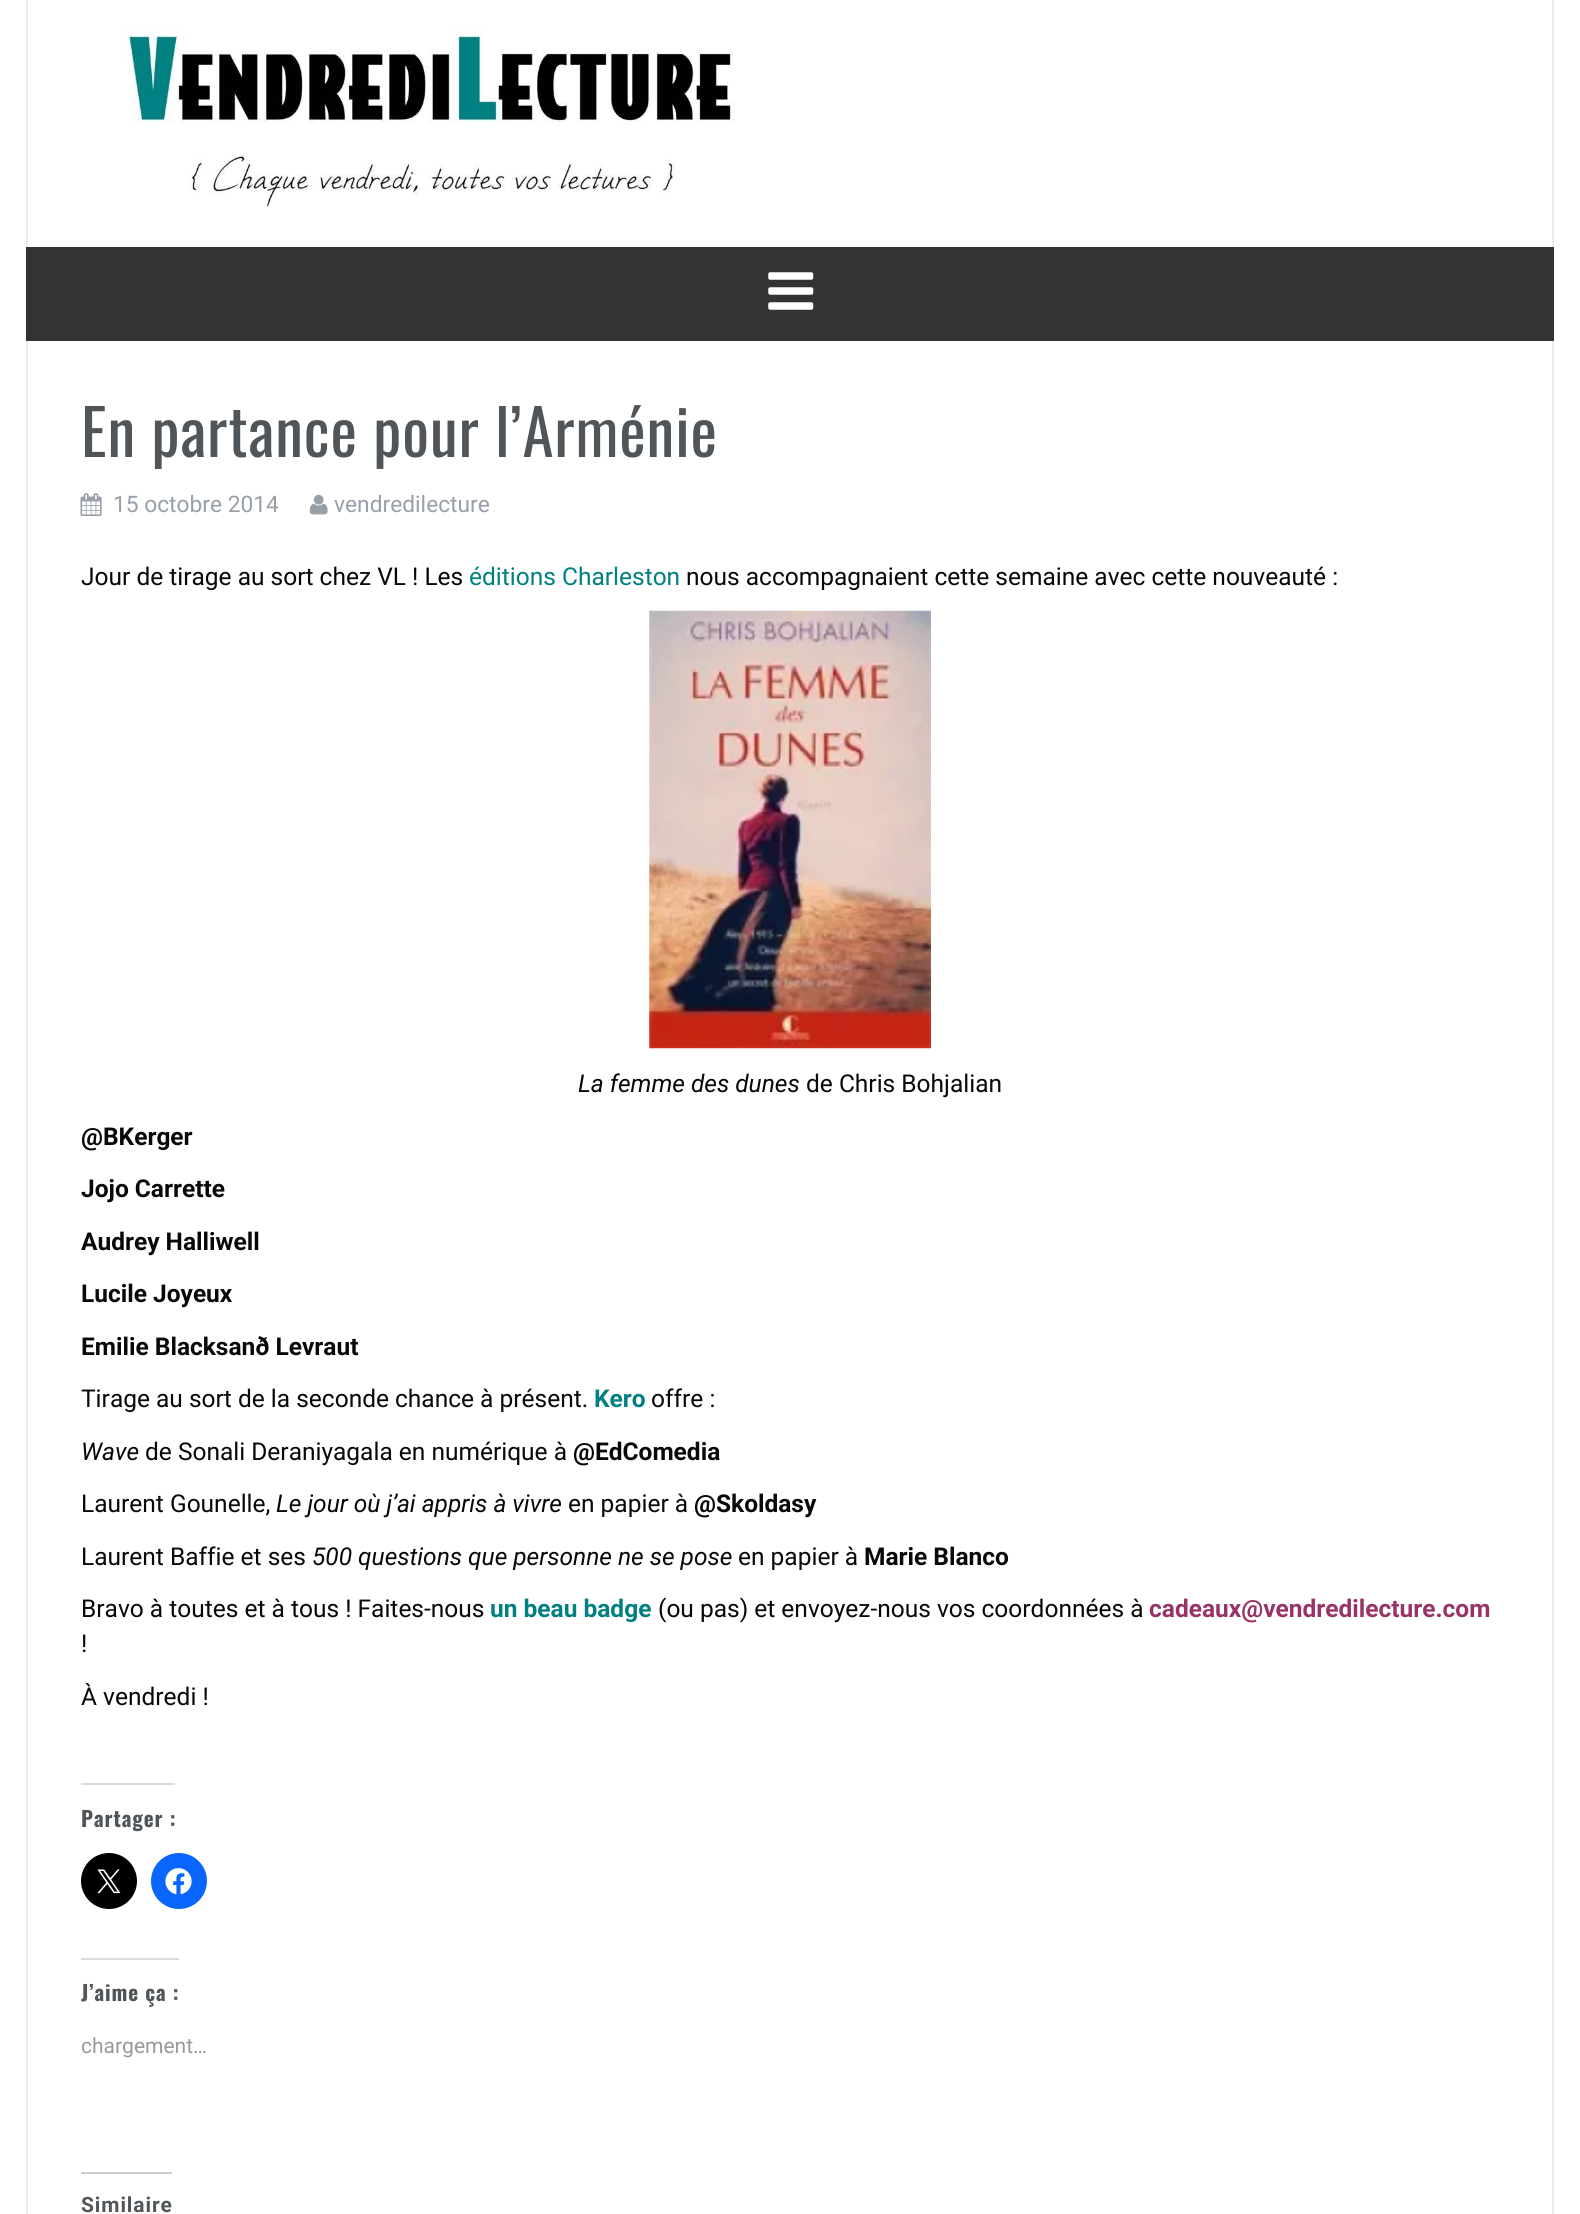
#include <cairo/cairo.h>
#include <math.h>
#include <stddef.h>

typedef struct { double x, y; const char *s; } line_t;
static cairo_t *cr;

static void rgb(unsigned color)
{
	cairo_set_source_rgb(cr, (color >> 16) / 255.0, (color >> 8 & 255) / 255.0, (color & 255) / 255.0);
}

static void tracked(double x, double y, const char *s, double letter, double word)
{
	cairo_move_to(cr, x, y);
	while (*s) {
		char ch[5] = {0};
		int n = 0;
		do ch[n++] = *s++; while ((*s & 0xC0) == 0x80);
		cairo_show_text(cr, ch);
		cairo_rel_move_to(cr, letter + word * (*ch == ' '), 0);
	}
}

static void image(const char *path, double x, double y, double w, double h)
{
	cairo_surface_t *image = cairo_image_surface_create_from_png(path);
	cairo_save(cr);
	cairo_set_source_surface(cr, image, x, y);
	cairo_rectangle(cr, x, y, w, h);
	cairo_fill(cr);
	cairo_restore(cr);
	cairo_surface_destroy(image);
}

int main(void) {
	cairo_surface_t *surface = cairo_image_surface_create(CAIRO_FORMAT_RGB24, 1580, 2214);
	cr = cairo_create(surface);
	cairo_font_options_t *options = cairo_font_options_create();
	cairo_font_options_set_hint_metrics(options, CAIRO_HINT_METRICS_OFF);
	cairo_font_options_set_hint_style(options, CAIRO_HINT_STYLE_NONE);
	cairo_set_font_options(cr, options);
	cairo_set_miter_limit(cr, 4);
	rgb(0xffffff);
	cairo_paint(cr);
	rgb(0xebebeb);
	cairo_rectangle(cr, 1552, 0, 2, 247);
	cairo_fill(cr);
	cairo_rectangle(cr, 26, 0, 2, 247);
	cairo_fill(cr);
	image("img/1.png", 122, 29, 612, 178);
	rgb(0x333333);
	cairo_rectangle(cr, 26, 247, 1528, 94);
	cairo_fill(cr);
	image("img/2.png", 768, 272, 46, 38);
	rgb(0xebebeb);
	cairo_rectangle(cr, 1552, 341, 2, 1873);
	cairo_fill(cr);
	cairo_rectangle(cr, 26, 341, 2, 1873);
	cairo_fill(cr);
	image("img/3.png", 80, 493, 22, 23);
	image("img/4.png", 309, 494, 19, 21);
	image("img/5.png", 649, 610, 282, 439);
	rgb(0xdcdcde);
	cairo_rectangle(cr, 81, 1783, 94, 2);
	cairo_fill(cr);
	rgb(0x000000);
	cairo_arc(cr, 109, 1881, 28, 0, 2 * M_PI);
	cairo_fill(cr);
	image("img/6.png", 97, 1869, 24, 25);
	rgb(0x0866ff);
	cairo_arc(cr, 179, 1881, 28, 0, 2 * M_PI);
	cairo_fill(cr);
	image("img/7.png", 165, 1868, 27, 27);
	rgb(0xdcdcde);
	cairo_rectangle(cr, 81, 1958, 98, 2);
	cairo_fill(cr);
	rgb(0xcccccc);
	cairo_rectangle(cr, 81, 2172, 91, 2);
	cairo_fill(cr);
	cairo_select_font_face(cr, "Oswald", CAIRO_FONT_SLANT_NORMAL, CAIRO_FONT_WEIGHT_NORMAL);
	cairo_set_font_size(cr, 63);
	rgb(0x505559);
	tracked(81, 457, "En partance pour l’Arménie", 0.9, 0);
	cairo_select_font_face(cr, "Roboto", CAIRO_FONT_SLANT_NORMAL, CAIRO_FONT_WEIGHT_NORMAL);
	cairo_set_font_size(cr, 22.75);
	rgb(0x989fa8);
	cairo_move_to(cr, 113, 512);
	cairo_show_text(cr, "15 octobre 2014");
	cairo_move_to(cr, 334, 512);
	cairo_show_text(cr, "vendredilecture");
	cairo_set_font_size(cr, 24.5);
	rgb(0x0a0707);
	cairo_move_to(cr, 81, 585);
	cairo_show_text(cr, "Jour de tirage au sort chez VL ! Les");
	rgb(0x008081);
	cairo_move_to(cr, 469, 585);
	cairo_show_text(cr, "éditions Charleston");
	rgb(0x0a0707);
	cairo_move_to(cr, 686, 585);
	cairo_show_text(cr, "nous accompagnaient cette semaine avec cette nouveauté :");
	cairo_select_font_face(cr, "Roboto", CAIRO_FONT_SLANT_ITALIC, CAIRO_FONT_WEIGHT_NORMAL);
	cairo_move_to(cr, 578, 1092);
	cairo_show_text(cr, "La femme des dunes");
	cairo_select_font_face(cr, "Roboto", CAIRO_FONT_SLANT_NORMAL, CAIRO_FONT_WEIGHT_NORMAL);
	cairo_move_to(cr, 806, 1092);
	cairo_show_text(cr, "de Chris Bohjalian");
	cairo_select_font_face(cr, "Roboto", CAIRO_FONT_SLANT_NORMAL, CAIRO_FONT_WEIGHT_BOLD);
	{
		static const line_t items[] = {
			{81, 1145, "@BKerger"},
			{81, 1197, "Jojo Carrette"},
			{81, 1250, "Audrey Halliwell"},
			{81, 1302, "Lucile Joyeux"},
			{81, 1355, "Emilie Blacksanð Levraut"},
		};
		for (size_t i = 0; i < sizeof items / sizeof *items; i++) {
			cairo_move_to(cr, items[i].x, items[i].y);
			cairo_show_text(cr, items[i].s);
		}
	}
	cairo_select_font_face(cr, "Roboto", CAIRO_FONT_SLANT_NORMAL, CAIRO_FONT_WEIGHT_NORMAL);
	cairo_move_to(cr, 81, 1407);
	cairo_show_text(cr, "Tirage au sort de la seconde chance à présent.");
	cairo_select_font_face(cr, "Roboto", CAIRO_FONT_SLANT_NORMAL, CAIRO_FONT_WEIGHT_BOLD);
	rgb(0x008081);
	cairo_move_to(cr, 594, 1407);
	cairo_show_text(cr, "Kero");
	cairo_select_font_face(cr, "Roboto", CAIRO_FONT_SLANT_NORMAL, CAIRO_FONT_WEIGHT_NORMAL);
	rgb(0x0a0707);
	cairo_move_to(cr, 651, 1407);
	cairo_show_text(cr, "offre :");
	cairo_select_font_face(cr, "Roboto", CAIRO_FONT_SLANT_ITALIC, CAIRO_FONT_WEIGHT_NORMAL);
	cairo_move_to(cr, 81, 1460);
	cairo_show_text(cr, "Wave");
	cairo_select_font_face(cr, "Roboto", CAIRO_FONT_SLANT_NORMAL, CAIRO_FONT_WEIGHT_NORMAL);
	cairo_move_to(cr, 145, 1460);
	cairo_show_text(cr, "de Sonali Deraniyagala en numérique à");
	cairo_select_font_face(cr, "Roboto", CAIRO_FONT_SLANT_NORMAL, CAIRO_FONT_WEIGHT_BOLD);
	cairo_move_to(cr, 573, 1460);
	cairo_show_text(cr, "@EdComedia");
	cairo_select_font_face(cr, "Roboto", CAIRO_FONT_SLANT_NORMAL, CAIRO_FONT_WEIGHT_NORMAL);
	cairo_move_to(cr, 81, 1512);
	cairo_show_text(cr, "Laurent Gounelle,");
	cairo_select_font_face(cr, "Roboto", CAIRO_FONT_SLANT_ITALIC, CAIRO_FONT_WEIGHT_NORMAL);
	cairo_move_to(cr, 276, 1512);
	cairo_show_text(cr, "Le jour où j’ai appris à vivre");
	cairo_select_font_face(cr, "Roboto", CAIRO_FONT_SLANT_NORMAL, CAIRO_FONT_WEIGHT_NORMAL);
	cairo_move_to(cr, 568, 1512);
	cairo_show_text(cr, "en papier à");
	cairo_select_font_face(cr, "Roboto", CAIRO_FONT_SLANT_NORMAL, CAIRO_FONT_WEIGHT_BOLD);
	cairo_move_to(cr, 694, 1512);
	cairo_show_text(cr, "@Skoldasy");
	cairo_select_font_face(cr, "Roboto", CAIRO_FONT_SLANT_NORMAL, CAIRO_FONT_WEIGHT_NORMAL);
	cairo_move_to(cr, 81, 1565);
	cairo_show_text(cr, "Laurent Baffie et ses");
	cairo_select_font_face(cr, "Roboto", CAIRO_FONT_SLANT_ITALIC, CAIRO_FONT_WEIGHT_NORMAL);
	cairo_move_to(cr, 312, 1565);
	cairo_show_text(cr, "500 questions que personne ne se pose");
	cairo_select_font_face(cr, "Roboto", CAIRO_FONT_SLANT_NORMAL, CAIRO_FONT_WEIGHT_NORMAL);
	cairo_move_to(cr, 738, 1565);
	cairo_show_text(cr, "en papier à");
	cairo_select_font_face(cr, "Roboto", CAIRO_FONT_SLANT_NORMAL, CAIRO_FONT_WEIGHT_BOLD);
	cairo_move_to(cr, 864, 1565);
	cairo_show_text(cr, "Marie Blanco");
	cairo_select_font_face(cr, "Roboto", CAIRO_FONT_SLANT_NORMAL, CAIRO_FONT_WEIGHT_NORMAL);
	cairo_move_to(cr, 81, 1617);
	cairo_show_text(cr, "Bravo à toutes et à tous ! Faites-nous");
	cairo_select_font_face(cr, "Roboto", CAIRO_FONT_SLANT_NORMAL, CAIRO_FONT_WEIGHT_BOLD);
	rgb(0x008081);
	cairo_move_to(cr, 490, 1617);
	cairo_show_text(cr, "un beau badge");
	cairo_select_font_face(cr, "Roboto", CAIRO_FONT_SLANT_NORMAL, CAIRO_FONT_WEIGHT_NORMAL);
	rgb(0x0a0707);
	cairo_move_to(cr, 658, 1617);
	cairo_show_text(cr, "(ou pas) et envoyez-nous vos coordonnées à");
	cairo_select_font_face(cr, "Roboto", CAIRO_FONT_SLANT_NORMAL, CAIRO_FONT_WEIGHT_BOLD);
	rgb(0x993366);
	cairo_move_to(cr, 1149, 1617);
	cairo_show_text(cr, "cadeaux@vendredilecture.com");
	cairo_select_font_face(cr, "Roboto", CAIRO_FONT_SLANT_NORMAL, CAIRO_FONT_WEIGHT_NORMAL);
	rgb(0x0a0707);
	cairo_move_to(cr, 81, 1652);
	cairo_show_text(cr, "!");
	cairo_move_to(cr, 81, 1705);
	cairo_show_text(cr, "À vendredi !");
	cairo_select_font_face(cr, "Oswald", CAIRO_FONT_SLANT_NORMAL, CAIRO_FONT_WEIGHT_BOLD);
	cairo_set_font_size(cr, 21);
	rgb(0x505559);
	tracked(81, 1827, "Partager :", 0.9, 0);
	tracked(81, 2001, "J’aime ça :", 0.9, 0);
	cairo_select_font_face(cr, "Roboto", CAIRO_FONT_SLANT_NORMAL, CAIRO_FONT_WEIGHT_NORMAL);
	rgb(0x999999);
	cairo_move_to(cr, 81, 2053);
	cairo_show_text(cr, "chargement…");
	cairo_select_font_face(cr, "Roboto", CAIRO_FONT_SLANT_NORMAL, CAIRO_FONT_WEIGHT_BOLD);
	rgb(0x505559);
	tracked(81, 2212, "Similaire", 0.9, 0);
	cairo_surface_write_to_png(surface, "page.png");
	cairo_font_options_destroy(options);
	cairo_destroy(cr);
	cairo_surface_destroy(surface);
	return 0;
}
